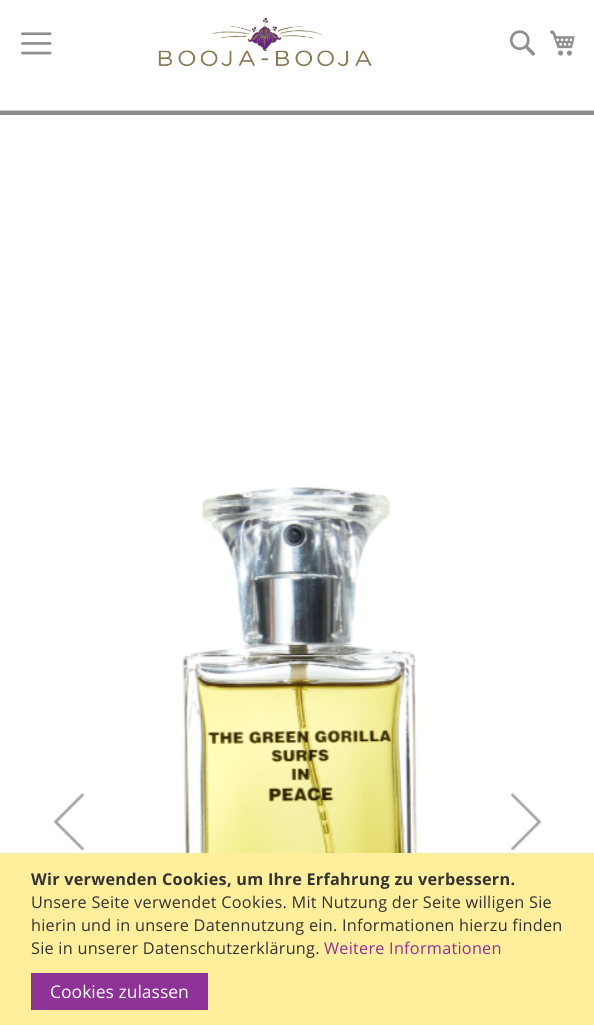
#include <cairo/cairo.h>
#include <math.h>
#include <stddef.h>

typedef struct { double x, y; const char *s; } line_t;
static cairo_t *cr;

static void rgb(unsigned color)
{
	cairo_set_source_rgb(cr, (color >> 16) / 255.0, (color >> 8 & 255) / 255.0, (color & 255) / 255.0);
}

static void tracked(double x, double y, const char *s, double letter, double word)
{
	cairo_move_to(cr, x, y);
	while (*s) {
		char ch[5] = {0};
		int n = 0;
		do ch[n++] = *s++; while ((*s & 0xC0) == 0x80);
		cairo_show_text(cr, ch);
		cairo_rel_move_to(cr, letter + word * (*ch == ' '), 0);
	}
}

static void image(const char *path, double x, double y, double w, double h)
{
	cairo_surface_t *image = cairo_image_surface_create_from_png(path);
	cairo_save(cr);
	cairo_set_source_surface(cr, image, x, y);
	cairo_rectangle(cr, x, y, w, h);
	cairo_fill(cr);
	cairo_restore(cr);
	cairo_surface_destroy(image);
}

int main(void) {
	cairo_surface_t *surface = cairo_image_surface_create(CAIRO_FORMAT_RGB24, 594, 1025);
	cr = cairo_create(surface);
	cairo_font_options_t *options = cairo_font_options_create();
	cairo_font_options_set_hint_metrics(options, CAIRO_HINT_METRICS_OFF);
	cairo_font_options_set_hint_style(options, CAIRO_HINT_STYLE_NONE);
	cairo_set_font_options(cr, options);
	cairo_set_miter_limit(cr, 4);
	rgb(0xffffff);
	cairo_paint(cr);
	rgb(0x8c8c8c);
	cairo_rectangle(cr, 0, 111, 594, 4);
	cairo_fill(cr);
	image("img/1.png", 158, 17, 214, 50);
	image("img/2.png", 509, 30, 27, 26);
	rgb(0xcccccc);
	cairo_rectangle(cr, 0, 110, 594, 1);
	cairo_fill(cr);
	image("img/3.png", 21, 32, 31, 23);
	image("img/4.png", 550, 30, 25, 26);
	image("img/5.png", 53, 793, 32, 58);
	image("img/6.png", 182, 486, 237, 367);
	image("img/7.png", 510, 793, 32, 58);
	rgb(0xffee9c);
	cairo_rectangle(cr, 0, 853, 594, 172);
	cairo_fill(cr);
	rgb(0x8f3296);
	cairo_rectangle(cr, 31, 973, 177, 37);
	cairo_fill(cr);
	cairo_select_font_face(cr, "Open Sans", CAIRO_FONT_SLANT_NORMAL, CAIRO_FONT_WEIGHT_BOLD);
	cairo_set_font_size(cr, 16.25);
	rgb(0x333333);
	tracked(31, 885, "Wir verwenden Cookies, um Ihre Erfahrung zu verbessern.", 0.25, 0);
	cairo_select_font_face(cr, "Open Sans", CAIRO_FONT_SLANT_NORMAL, CAIRO_FONT_WEIGHT_NORMAL);
	{
		static const line_t items[] = {
			{31, 908, "Unsere Seite verwendet Cookies. Mit Nutzung der Seite willigen Sie"},
			{31, 931, "hierin und in unsere Datennutzung ein. Informationen hierzu finden"},
			{31, 954, "Sie in unserer Datenschutzerklärung."},
		};
		for (size_t i = 0; i < sizeof items / sizeof *items; i++) {
			tracked(items[i].x, items[i].y, items[i].s, 0.25, 0);
		}
	}
	rgb(0x8f3296);
	tracked(324, 954, "Weitere Informationen", 0.25, 0);
	cairo_set_font_size(cr, 17.5);
	rgb(0xffffff);
	cairo_move_to(cr, 50, 998);
	cairo_show_text(cr, "Cookies zulassen");
	cairo_surface_write_to_png(surface, "page.png");
	cairo_font_options_destroy(options);
	cairo_destroy(cr);
	cairo_surface_destroy(surface);
	return 0;
}
